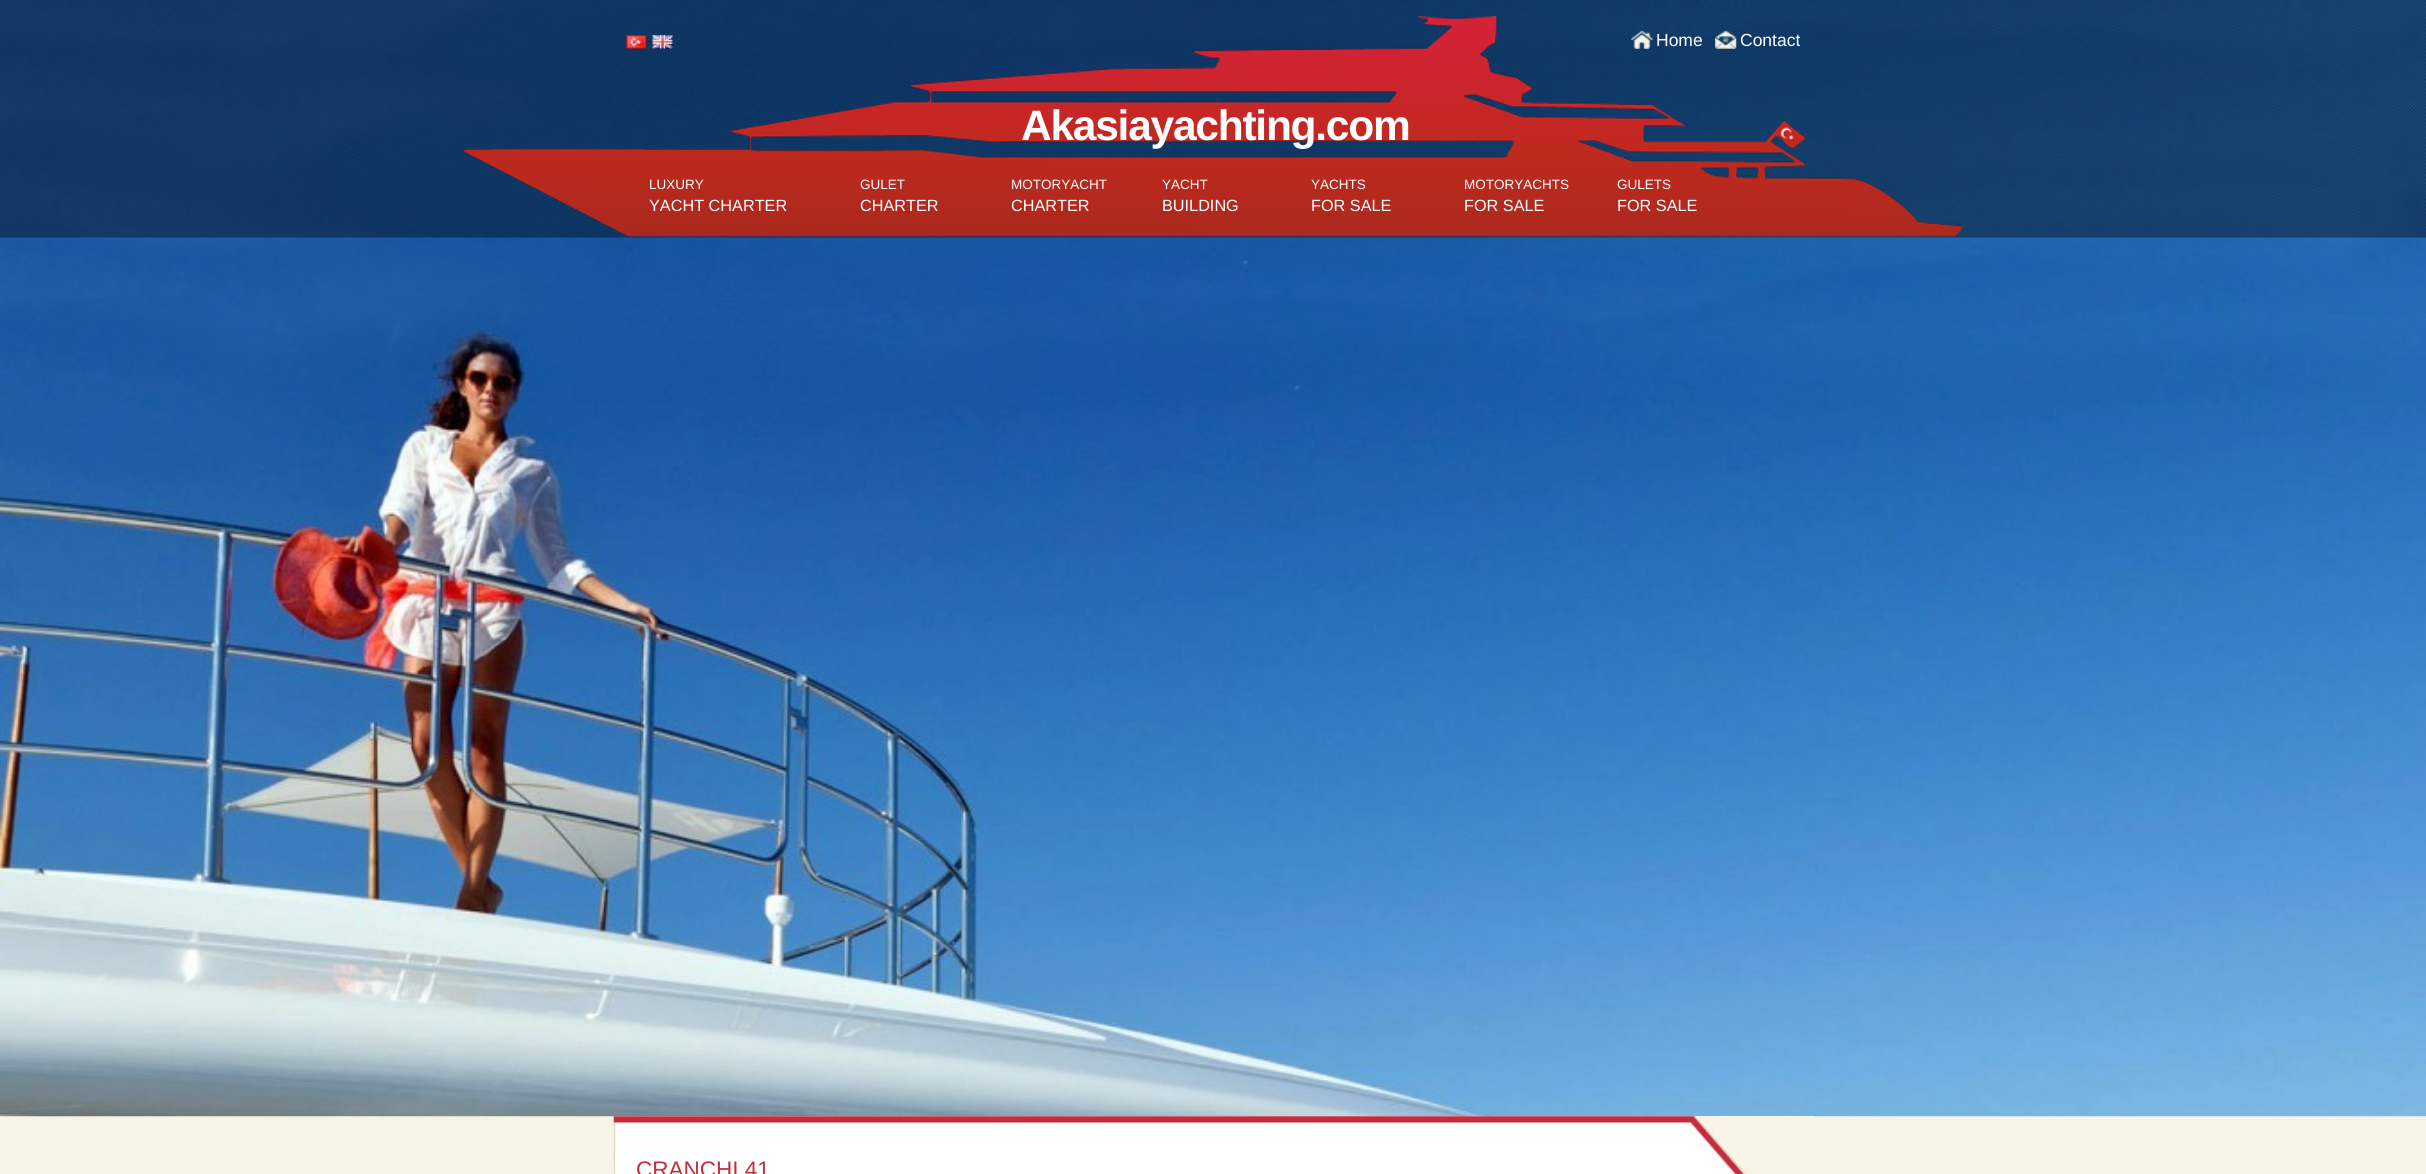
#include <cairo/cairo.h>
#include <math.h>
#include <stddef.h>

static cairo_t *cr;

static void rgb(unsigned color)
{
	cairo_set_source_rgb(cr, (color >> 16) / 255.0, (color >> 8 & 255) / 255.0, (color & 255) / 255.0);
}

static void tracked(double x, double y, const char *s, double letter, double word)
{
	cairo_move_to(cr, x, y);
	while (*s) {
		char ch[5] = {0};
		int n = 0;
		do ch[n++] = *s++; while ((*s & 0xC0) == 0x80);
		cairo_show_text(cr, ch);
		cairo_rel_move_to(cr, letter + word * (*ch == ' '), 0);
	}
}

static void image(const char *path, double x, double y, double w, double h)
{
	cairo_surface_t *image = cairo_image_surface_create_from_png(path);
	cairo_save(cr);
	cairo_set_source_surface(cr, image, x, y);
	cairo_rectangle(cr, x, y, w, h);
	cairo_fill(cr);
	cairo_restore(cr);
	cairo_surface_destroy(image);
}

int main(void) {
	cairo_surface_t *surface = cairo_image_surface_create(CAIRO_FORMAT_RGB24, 2426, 1174);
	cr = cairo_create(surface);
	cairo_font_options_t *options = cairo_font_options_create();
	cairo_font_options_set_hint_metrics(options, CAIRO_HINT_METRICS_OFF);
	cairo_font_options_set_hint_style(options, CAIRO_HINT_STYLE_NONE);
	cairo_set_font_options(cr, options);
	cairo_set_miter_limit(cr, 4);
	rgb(0xf8f4e5);
	cairo_paint(cr);
	image("img/1.png", 0, 0, 2426, 1117);
	image("img/2.png", 0, 0, 2426, 238);
	image("img/3.png", 463, 15, 1501, 222);
	image("img/4.png", 626, 35, 21, 14);
	image("img/5.png", 652, 35, 21, 14);
	image("img/6.png", 1631, 31, 22, 18);
	image("img/7.png", 1715, 31, 22, 18);
	rgb(0xffffff);
	cairo_rectangle(cr, 614, 1116, 1200, 58);
	cairo_fill(cr);
	image("img/8.png", 613, 1116, 1201, 58);
	cairo_select_font_face(cr, "Liberation Sans", CAIRO_FONT_SLANT_NORMAL, CAIRO_FONT_WEIGHT_NORMAL);
	cairo_set_font_size(cr, 17.5);
	cairo_move_to(cr, 1656, 46);
	cairo_show_text(cr, "Home");
	cairo_move_to(cr, 1740, 46);
	cairo_show_text(cr, "Contact");
	cairo_select_font_face(cr, "Liberation Sans", CAIRO_FONT_SLANT_NORMAL, CAIRO_FONT_WEIGHT_BOLD);
	cairo_set_font_size(cr, 42.5);
	tracked(1021, 140, "Akasiayachting.com", -1.25, 0);
	cairo_select_font_face(cr, "Liberation Sans", CAIRO_FONT_SLANT_NORMAL, CAIRO_FONT_WEIGHT_NORMAL);
	cairo_set_font_size(cr, 13.5);
	cairo_move_to(cr, 649, 189);
	cairo_show_text(cr, "LUXURY");
	cairo_set_font_size(cr, 16.25);
	cairo_move_to(cr, 649, 211);
	cairo_show_text(cr, "YACHT CHARTER");
	cairo_set_font_size(cr, 13.5);
	cairo_move_to(cr, 860, 189);
	cairo_show_text(cr, "GULET");
	cairo_set_font_size(cr, 16.25);
	cairo_move_to(cr, 860, 211);
	cairo_show_text(cr, "CHARTER");
	cairo_set_font_size(cr, 13.5);
	cairo_move_to(cr, 1011, 189);
	cairo_show_text(cr, "MOTORYACHT");
	cairo_set_font_size(cr, 16.25);
	cairo_move_to(cr, 1011, 211);
	cairo_show_text(cr, "CHARTER");
	cairo_set_font_size(cr, 13.5);
	cairo_move_to(cr, 1162, 189);
	cairo_show_text(cr, "YACHT");
	cairo_set_font_size(cr, 16.25);
	cairo_move_to(cr, 1162, 211);
	cairo_show_text(cr, "BUILDING");
	cairo_set_font_size(cr, 13.5);
	cairo_move_to(cr, 1311, 189);
	cairo_show_text(cr, "YACHTS");
	cairo_set_font_size(cr, 16.25);
	cairo_move_to(cr, 1311, 211);
	cairo_show_text(cr, "FOR SALE");
	cairo_set_font_size(cr, 13.5);
	cairo_move_to(cr, 1464, 189);
	cairo_show_text(cr, "MOTORYACHTS");
	cairo_set_font_size(cr, 16.25);
	cairo_move_to(cr, 1464, 211);
	cairo_show_text(cr, "FOR SALE");
	cairo_set_font_size(cr, 13.5);
	cairo_move_to(cr, 1617, 189);
	cairo_show_text(cr, "GULETS");
	cairo_set_font_size(cr, 16.25);
	cairo_move_to(cr, 1617, 211);
	cairo_show_text(cr, "FOR SALE");
	cairo_set_font_size(cr, 22.5);
	rgb(0xc22e3e);
	cairo_move_to(cr, 636, 1177);
	cairo_show_text(cr, "CRANCHI 41");
	cairo_surface_write_to_png(surface, "page.png");
	cairo_font_options_destroy(options);
	cairo_destroy(cr);
	cairo_surface_destroy(surface);
	return 0;
}
